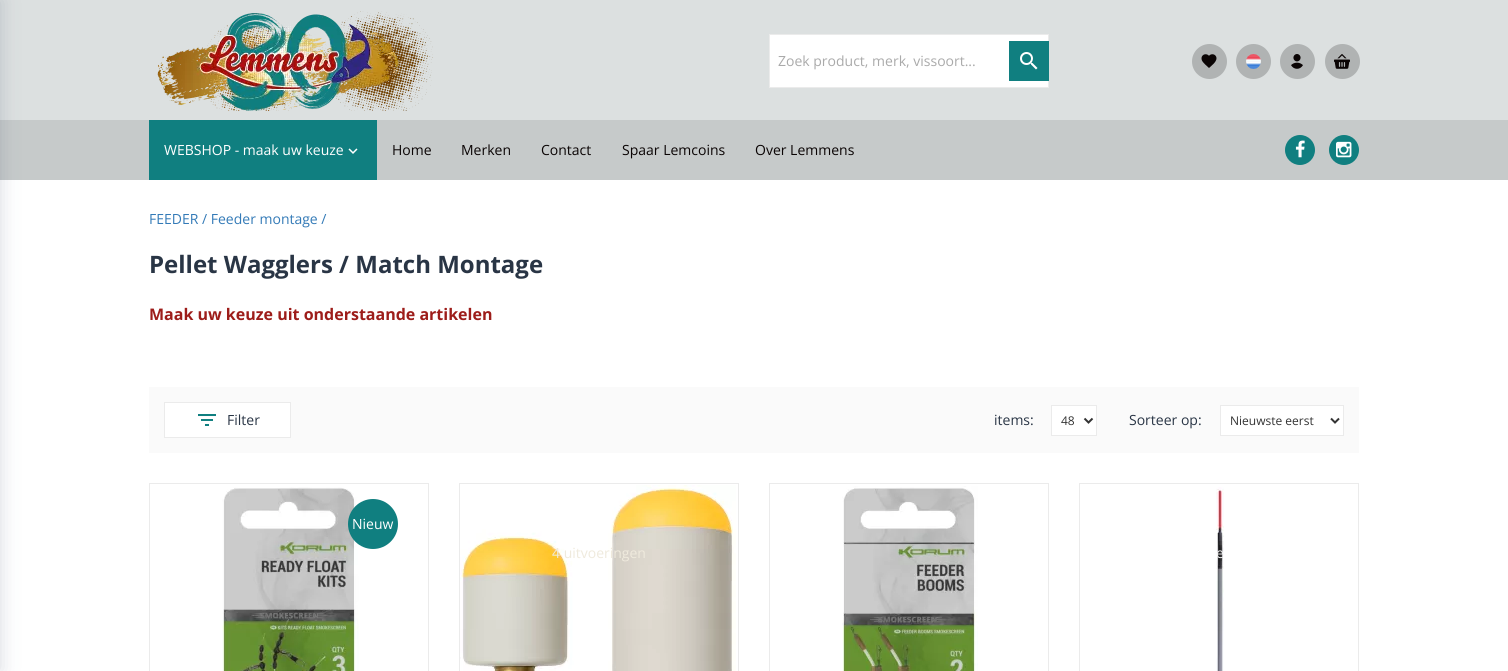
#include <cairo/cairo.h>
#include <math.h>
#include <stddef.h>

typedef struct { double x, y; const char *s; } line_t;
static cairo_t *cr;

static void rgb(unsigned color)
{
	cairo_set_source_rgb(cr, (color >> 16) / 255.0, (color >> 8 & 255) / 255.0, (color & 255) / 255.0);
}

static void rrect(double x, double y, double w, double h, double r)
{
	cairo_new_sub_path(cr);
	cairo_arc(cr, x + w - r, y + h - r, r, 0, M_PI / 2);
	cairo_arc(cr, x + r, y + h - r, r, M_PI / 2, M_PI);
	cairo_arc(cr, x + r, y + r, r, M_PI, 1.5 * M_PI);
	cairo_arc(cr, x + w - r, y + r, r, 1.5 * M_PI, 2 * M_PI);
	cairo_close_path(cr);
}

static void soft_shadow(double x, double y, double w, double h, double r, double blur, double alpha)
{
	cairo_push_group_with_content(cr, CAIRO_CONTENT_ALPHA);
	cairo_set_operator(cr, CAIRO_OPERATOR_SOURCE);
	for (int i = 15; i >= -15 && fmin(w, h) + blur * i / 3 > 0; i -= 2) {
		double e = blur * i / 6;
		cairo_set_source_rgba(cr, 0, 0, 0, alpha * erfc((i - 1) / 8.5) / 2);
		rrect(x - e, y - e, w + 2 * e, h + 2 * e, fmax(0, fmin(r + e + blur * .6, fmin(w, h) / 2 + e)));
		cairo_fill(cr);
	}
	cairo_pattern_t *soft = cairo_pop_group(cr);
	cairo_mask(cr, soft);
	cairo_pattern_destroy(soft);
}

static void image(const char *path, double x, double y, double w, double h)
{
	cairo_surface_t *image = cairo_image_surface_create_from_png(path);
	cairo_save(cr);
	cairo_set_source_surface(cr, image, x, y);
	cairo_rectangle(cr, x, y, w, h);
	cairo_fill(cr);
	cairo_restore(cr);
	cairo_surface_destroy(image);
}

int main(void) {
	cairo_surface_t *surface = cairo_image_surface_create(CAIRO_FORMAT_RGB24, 1508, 671);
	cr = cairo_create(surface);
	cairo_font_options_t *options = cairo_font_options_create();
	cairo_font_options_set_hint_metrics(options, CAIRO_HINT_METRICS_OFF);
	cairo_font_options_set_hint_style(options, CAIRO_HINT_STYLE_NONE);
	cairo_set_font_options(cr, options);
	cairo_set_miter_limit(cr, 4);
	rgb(0xffffff);
	cairo_paint(cr);
	rgb(0xdce0e0);
	cairo_rectangle(cr, 0, 0, 1508, 120);
	cairo_fill(cr);
	image("img/1.png", 157, 11, 276, 100);
	rgb(0xffffff);
	cairo_rectangle(cr, 769.5, 34.5, 279, 53);
	cairo_fill_preserve(cr);
	rgb(0xebebeb);
	cairo_set_line_width(cr, 1);
	cairo_stroke(cr);
	rgb(0x107f80);
	cairo_rectangle(cr, 1009, 41, 40, 40);
	cairo_fill(cr);
	image("img/2.png", 1020, 52, 18, 18);
	rgb(0xb0b3b3);
	cairo_arc(cr, 1209.5, 61.5, 17.5, 0, 2 * M_PI);
	cairo_fill(cr);
	image("img/3.png", 1201, 54, 16, 14);
	cairo_arc(cr, 1253.5, 61.5, 17.5, 0, 2 * M_PI);
	cairo_fill(cr);
	image("img/4.png", 1246, 54, 15, 15);
	cairo_arc(cr, 1297.5, 61.5, 17.5, 0, 2 * M_PI);
	cairo_fill(cr);
	image("img/5.png", 1291, 54, 12, 15);
	cairo_arc(cr, 1342.5, 61.5, 17.5, 0, 2 * M_PI);
	cairo_fill(cr);
	image("img/6.png", 1334, 54, 16, 15);
	rgb(0xc6caca);
	cairo_rectangle(cr, 0, 120, 1508, 60);
	cairo_fill(cr);
	rgb(0x107f80);
	cairo_rectangle(cr, 149, 120, 228, 60);
	cairo_fill(cr);
	image("img/7.png", 348, 148, 10, 6);
	cairo_arc(cr, 1300, 150, 15, 0, 2 * M_PI);
	cairo_fill(cr);
	image("img/8.png", 1295, 140, 10, 18);
	cairo_arc(cr, 1344, 150, 15, 0, 2 * M_PI);
	cairo_fill(cr);
	image("img/9.png", 1336, 141, 16, 17);
	rgb(0x324060);
	soft_shadow(-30, 0, 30, 671, 0, 10, 0.2);
	rgb(0xfafafa);
	cairo_rectangle(cr, 149, 387, 1210, 66);
	cairo_fill(cr);
	rgb(0xffffff);
	cairo_rectangle(cr, 164.5, 402.5, 126, 35);
	cairo_fill_preserve(cr);
	rgb(0xebebeb);
	cairo_stroke(cr);
	image("img/10.png", 198, 414, 18, 12);
	rgb(0xffffff);
	cairo_rectangle(cr, 1051.5, 405.5, 45, 30);
	cairo_fill_preserve(cr);
	rgb(0xebebeb);
	cairo_stroke(cr);
	cairo_new_path(cr);
	cairo_move_to(cr, 1084.5, 418.5);
	cairo_line_to(cr, 1088.5, 422.5);
	cairo_line_to(cr, 1092.5, 418.5);
	rgb(0x333333);
	cairo_set_line_width(cr, 2);
	cairo_stroke(cr);
	rgb(0xffffff);
	cairo_rectangle(cr, 1220.5, 405.5, 123, 30);
	cairo_fill_preserve(cr);
	rgb(0xebebeb);
	cairo_set_line_width(cr, 1);
	cairo_stroke(cr);
	cairo_new_path(cr);
	cairo_move_to(cr, 1331, 418.5);
	cairo_line_to(cr, 1335, 422.5);
	cairo_line_to(cr, 1339, 418.5);
	rgb(0x333333);
	cairo_set_line_width(cr, 2);
	cairo_stroke(cr);
	cairo_rectangle(cr, 149.5, 483.5, 279, 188);
	rgb(0xebebeb);
	cairo_set_line_width(cr, 1);
	cairo_stroke(cr);
	image("img/11.png", 222, 487, 137, 184);
	rgb(0x107f80);
	cairo_arc(cr, 373, 524, 25, 0, 2 * M_PI);
	cairo_fill(cr);
	cairo_rectangle(cr, 769.5, 483.5, 279, 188);
	rgb(0xebebeb);
	cairo_stroke(cr);
	image("img/12.png", 842, 486, 136, 185);
	cairo_rectangle(cr, 459.5, 483.5, 279, 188);
	cairo_stroke(cr);
	image("img/13.png", 460, 485, 276, 186);
	cairo_rectangle(cr, 1079.5, 483.5, 279, 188);
	cairo_stroke(cr);
	image("img/14.png", 1216, 487, 8, 184);
	cairo_select_font_face(cr, "Open Sans", CAIRO_FONT_SLANT_NORMAL, CAIRO_FONT_WEIGHT_NORMAL);
	cairo_set_font_size(cr, 14);
	rgb(0xaaaaaa);
	cairo_move_to(cr, 778, 66);
	cairo_show_text(cr, "Zoek product, merk, vissoort...");
	rgb(0xffffff);
	cairo_move_to(cr, 164, 155);
	cairo_show_text(cr, "WEBSHOP - maak uw keuze");
	rgb(0x0a0404);
	{
		static const line_t items[] = {
			{392, 155, "Home"},
			{461, 155, "Merken"},
			{541, 155, "Contact"},
			{622, 155, "Spaar Lemcoins"},
			{755, 155, "Over Lemmens"},
		};
		for (size_t i = 0; i < sizeof items / sizeof *items; i++) {
			cairo_move_to(cr, items[i].x, items[i].y);
			cairo_show_text(cr, items[i].s);
		}
	}
	rgb(0x337ab7);
	cairo_move_to(cr, 149, 224);
	cairo_show_text(cr, "FEEDER / Feeder montage /");
	cairo_select_font_face(cr, "Open Sans", CAIRO_FONT_SLANT_NORMAL, CAIRO_FONT_WEIGHT_BOLD);
	cairo_set_font_size(cr, 24);
	rgb(0x293545);
	cairo_move_to(cr, 149, 273);
	cairo_show_text(cr, "Pellet Wagglers / Match Montage");
	cairo_set_font_size(cr, 16);
	rgb(0x9d1d1a);
	cairo_move_to(cr, 149, 320);
	cairo_show_text(cr, "Maak uw keuze uit onderstaande artikelen");
	cairo_select_font_face(cr, "Open Sans", CAIRO_FONT_SLANT_NORMAL, CAIRO_FONT_WEIGHT_NORMAL);
	cairo_set_font_size(cr, 14);
	rgb(0x293545);
	cairo_move_to(cr, 227, 425);
	cairo_show_text(cr, "Filter");
	cairo_move_to(cr, 994, 425);
	cairo_show_text(cr, "items:");
	cairo_set_font_size(cr, 12);
	rgb(0x333333);
	cairo_move_to(cr, 1061, 425);
	cairo_show_text(cr, "48");
	cairo_set_font_size(cr, 14);
	rgb(0x293545);
	cairo_move_to(cr, 1129, 425);
	cairo_show_text(cr, "Sorteer op:");
	cairo_set_font_size(cr, 12);
	rgb(0x333333);
	cairo_move_to(cr, 1230, 425);
	cairo_show_text(cr, "Nieuwste eerst");
	cairo_set_font_size(cr, 14);
	rgb(0xffffff);
	cairo_move_to(cr, 352, 529);
	cairo_show_text(cr, "Nieuw");
	rgb(0xefeadd);
	cairo_move_to(cr, 552, 558);
	cairo_show_text(cr, "4 uitvoeringen");
	rgb(0xf2f2f2);
	cairo_move_to(cr, 1216, 558);
	cairo_show_text(cr, "e");
	cairo_surface_write_to_png(surface, "page.png");
	cairo_font_options_destroy(options);
	cairo_destroy(cr);
	cairo_surface_destroy(surface);
	return 0;
}
